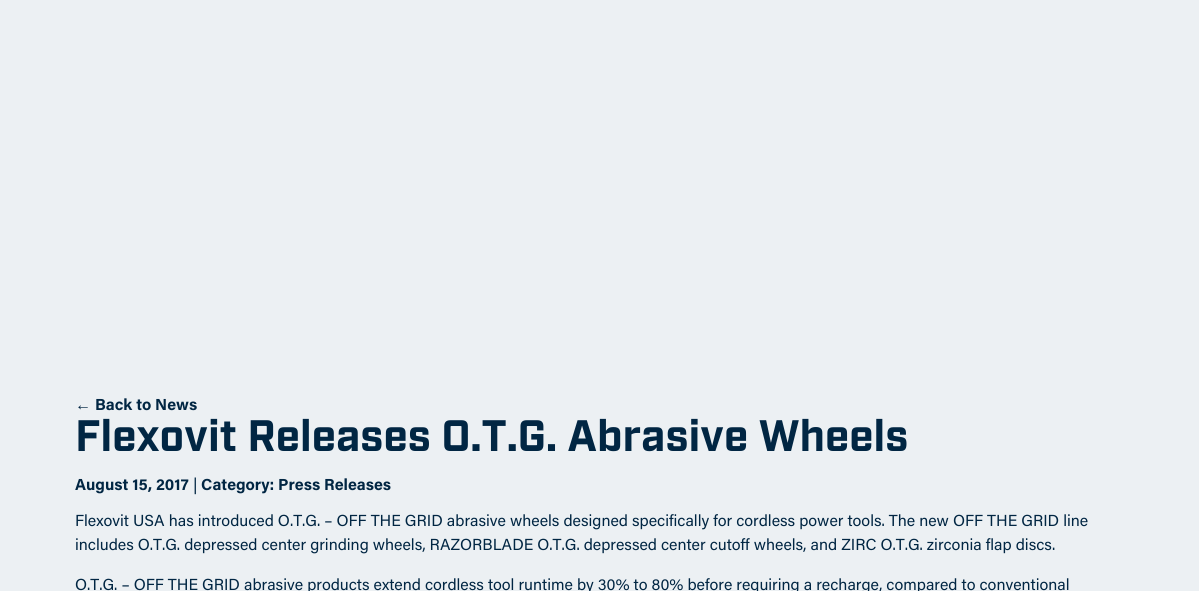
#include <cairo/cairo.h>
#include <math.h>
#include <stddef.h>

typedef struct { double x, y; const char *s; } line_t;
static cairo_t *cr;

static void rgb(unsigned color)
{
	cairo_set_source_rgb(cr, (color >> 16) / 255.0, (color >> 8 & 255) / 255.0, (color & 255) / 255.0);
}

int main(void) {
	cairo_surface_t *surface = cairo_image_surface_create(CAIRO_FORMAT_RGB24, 1199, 591);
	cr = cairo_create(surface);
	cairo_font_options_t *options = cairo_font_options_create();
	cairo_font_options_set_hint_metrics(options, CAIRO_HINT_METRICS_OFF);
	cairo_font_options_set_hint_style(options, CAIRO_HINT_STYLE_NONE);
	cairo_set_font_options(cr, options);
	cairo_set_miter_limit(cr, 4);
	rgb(0xecf0f3);
	cairo_paint(cr);
	cairo_select_font_face(cr, "Liberation Sans", CAIRO_FONT_SLANT_NORMAL, CAIRO_FONT_WEIGHT_BOLD);
	cairo_set_font_size(cr, 16);
	rgb(0x012643);
	cairo_move_to(cr, 75, 410);
	cairo_show_text(cr, "←");
	cairo_select_font_face(cr, "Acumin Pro", CAIRO_FONT_SLANT_NORMAL, CAIRO_FONT_WEIGHT_BOLD);
	cairo_move_to(cr, 95, 410);
	cairo_show_text(cr, "Back to News");
	cairo_select_font_face(cr, "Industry", CAIRO_FONT_SLANT_NORMAL, CAIRO_FONT_WEIGHT_BOLD);
	cairo_set_font_size(cr, 44);
	cairo_move_to(cr, 75, 451);
	cairo_show_text(cr, "Flexovit Releases O.T.G. Abrasive Wheels");
	cairo_select_font_face(cr, "Acumin Pro", CAIRO_FONT_SLANT_NORMAL, CAIRO_FONT_WEIGHT_BOLD);
	cairo_set_font_size(cr, 16);
	cairo_move_to(cr, 75, 490);
	cairo_show_text(cr, "August 15, 2017");
	cairo_select_font_face(cr, "Acumin Pro", CAIRO_FONT_SLANT_NORMAL, CAIRO_FONT_WEIGHT_NORMAL);
	cairo_move_to(cr, 193, 490);
	cairo_show_text(cr, "|");
	cairo_select_font_face(cr, "Acumin Pro", CAIRO_FONT_SLANT_NORMAL, CAIRO_FONT_WEIGHT_BOLD);
	cairo_move_to(cr, 201, 490);
	cairo_show_text(cr, "Category: Press Releases");
	cairo_select_font_face(cr, "Acumin Pro", CAIRO_FONT_SLANT_NORMAL, CAIRO_FONT_WEIGHT_NORMAL);
	{
		static const line_t items[] = {
			{75, 526, "Flexovit USA has introduced O.T.G. – OFF THE GRID abrasive wheels designed specifically for cordless power tools. The new OFF THE GRID line"},
			{75, 550, "includes O.T.G. depressed center grinding wheels, RAZORBLADE O.T.G. depressed center cutoff wheels, and ZIRC O.T.G. zirconia flap discs."},
			{75, 590, "O.T.G. – OFF THE GRID abrasive products extend cordless tool runtime by 30% to 80% before requiring a recharge, compared to conventional"},
		};
		for (size_t i = 0; i < sizeof items / sizeof *items; i++) {
			cairo_move_to(cr, items[i].x, items[i].y);
			cairo_show_text(cr, items[i].s);
		}
	}
	cairo_surface_write_to_png(surface, "page.png");
	cairo_font_options_destroy(options);
	cairo_destroy(cr);
	cairo_surface_destroy(surface);
	return 0;
}
